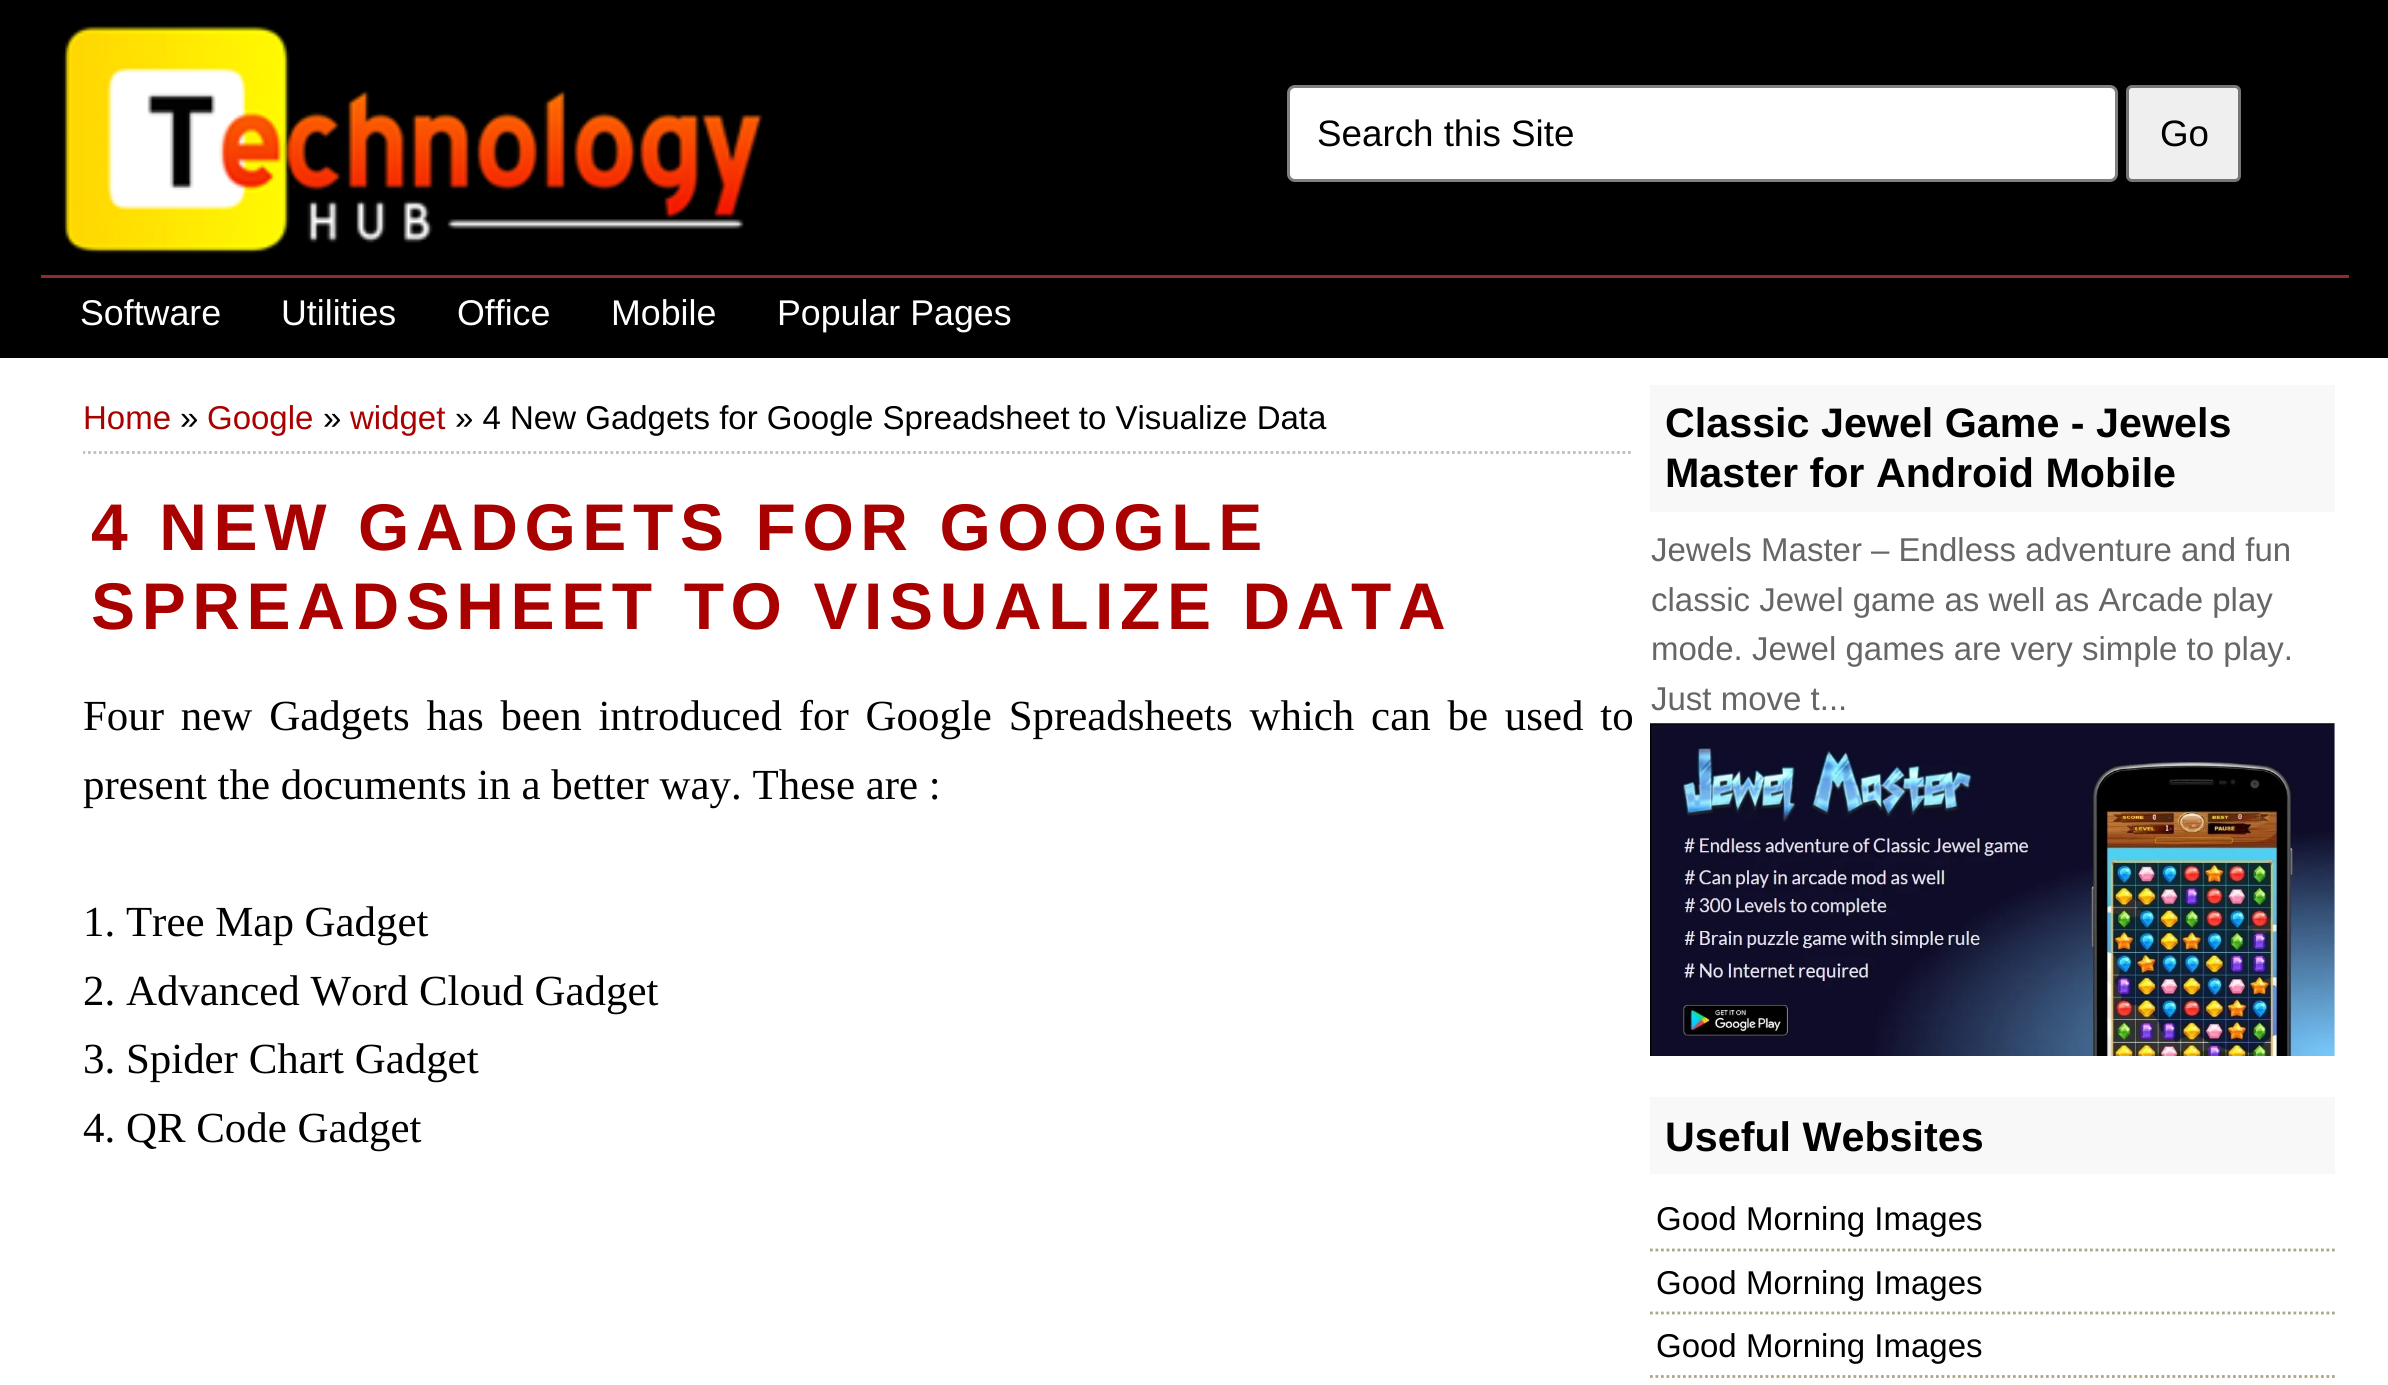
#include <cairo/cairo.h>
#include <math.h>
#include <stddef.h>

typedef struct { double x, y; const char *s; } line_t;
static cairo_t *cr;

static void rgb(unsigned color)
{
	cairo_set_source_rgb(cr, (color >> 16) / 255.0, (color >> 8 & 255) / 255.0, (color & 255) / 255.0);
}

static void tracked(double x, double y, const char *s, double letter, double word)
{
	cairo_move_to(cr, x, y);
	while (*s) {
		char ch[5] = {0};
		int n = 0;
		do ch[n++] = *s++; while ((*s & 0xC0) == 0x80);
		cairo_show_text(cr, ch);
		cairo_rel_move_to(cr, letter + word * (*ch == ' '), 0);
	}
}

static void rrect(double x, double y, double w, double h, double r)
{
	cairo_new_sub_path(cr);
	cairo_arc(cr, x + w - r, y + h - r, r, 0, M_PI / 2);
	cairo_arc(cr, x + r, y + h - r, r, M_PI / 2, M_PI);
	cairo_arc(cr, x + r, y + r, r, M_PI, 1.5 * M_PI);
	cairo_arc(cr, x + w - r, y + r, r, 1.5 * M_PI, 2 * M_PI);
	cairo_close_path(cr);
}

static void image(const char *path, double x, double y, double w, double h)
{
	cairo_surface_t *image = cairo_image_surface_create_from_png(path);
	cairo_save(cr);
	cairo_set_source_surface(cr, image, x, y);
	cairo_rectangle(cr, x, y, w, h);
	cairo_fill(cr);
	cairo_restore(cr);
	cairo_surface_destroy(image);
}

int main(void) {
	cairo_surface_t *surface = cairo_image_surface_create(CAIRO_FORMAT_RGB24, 2388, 1385);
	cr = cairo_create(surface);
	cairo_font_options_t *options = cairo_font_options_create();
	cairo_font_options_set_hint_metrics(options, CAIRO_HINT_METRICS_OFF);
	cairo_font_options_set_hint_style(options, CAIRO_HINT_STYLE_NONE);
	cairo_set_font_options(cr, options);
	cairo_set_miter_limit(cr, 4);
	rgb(0x000000);
	cairo_paint(cr);
	image("img/1.png", 63, 25, 700, 229);
	rgb(0xffffff);
	rrect(1288.5, 86.5, 828, 94, 6.5);
	cairo_fill_preserve(cr);
	rgb(0x808080);
	cairo_set_line_width(cr, 3);
	cairo_stroke(cr);
	rgb(0xefefef);
	rrect(2127.5, 86.5, 112, 94, 4.5);
	cairo_fill_preserve(cr);
	rgb(0x767676);
	cairo_stroke(cr);
	rgb(0x922b2b);
	cairo_rectangle(cr, 41, 275, 2308, 3);
	cairo_fill(cr);
	rgb(0xffffff);
	cairo_rectangle(cr, 0, 358, 2388, 1027);
	cairo_fill(cr);
	cairo_save(cr);
	cairo_rectangle(cr, 83, 358, 1551, 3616);
	cairo_clip(cr);
	cairo_new_path(cr);
	cairo_move_to(cr, 82.5, 452.5);
	cairo_line_to(cr, 1633.5, 452.5);
	rgb(0xc4bcbc);
	cairo_set_line_width(cr, 2.8);
	cairo_set_dash(cr, (double[]){2.75, 2.75}, 2, 0);
	cairo_stroke(cr);
	cairo_restore(cr);
	rgb(0xf8f8f8);
	cairo_rectangle(cr, 1650, 385, 685, 127);
	cairo_fill(cr);
	image("img/2.png", 1650, 723, 685, 333);
	cairo_rectangle(cr, 1650, 1097, 685, 77);
	cairo_fill(cr);
	cairo_new_path(cr);
	cairo_move_to(cr, 1650, 1250);
	cairo_line_to(cr, 2335, 1250);
	rgb(0xaba789);
	cairo_set_line_width(cr, 2.8);
	cairo_set_dash(cr, (double[]){2.75, 2.75}, 2, 0);
	cairo_stroke(cr);
	cairo_new_path(cr);
	cairo_move_to(cr, 1650, 1313);
	cairo_line_to(cr, 2335, 1313);
	cairo_stroke(cr);
	cairo_new_path(cr);
	cairo_move_to(cr, 1650, 1376.5);
	cairo_line_to(cr, 2335, 1376.5);
	cairo_stroke(cr);
	cairo_select_font_face(cr, "Liberation Sans", CAIRO_FONT_SLANT_NORMAL, CAIRO_FONT_WEIGHT_NORMAL);
	cairo_set_font_size(cr, 36.75);
	rgb(0x000000);
	cairo_move_to(cr, 1317, 146);
	cairo_show_text(cr, "Search this Site");
	cairo_move_to(cr, 2160, 146);
	cairo_show_text(cr, "Go");
	cairo_set_font_size(cr, 35.75);
	rgb(0xffffff);
	{
		static const line_t items[] = {
			{80, 325, "Software"},
			{281, 325, "Utilities"},
			{457, 325, "Office"},
			{611, 325, "Mobile"},
			{777, 325, "Popular Pages"},
		};
		for (size_t i = 0; i < sizeof items / sizeof *items; i++) {
			cairo_move_to(cr, items[i].x, items[i].y);
			cairo_show_text(cr, items[i].s);
		}
	}
	cairo_set_font_size(cr, 33);
	rgb(0xa90000);
	cairo_move_to(cr, 83, 429);
	cairo_show_text(cr, "Home");
	rgb(0x000000);
	cairo_move_to(cr, 180, 429);
	cairo_show_text(cr, "»");
	rgb(0xa90000);
	cairo_move_to(cr, 207, 429);
	cairo_show_text(cr, "Google");
	rgb(0x000000);
	cairo_move_to(cr, 323, 429);
	cairo_show_text(cr, "»");
	rgb(0xa90000);
	cairo_move_to(cr, 350, 429);
	cairo_show_text(cr, "widget");
	rgb(0x000000);
	cairo_move_to(cr, 455, 429);
	cairo_show_text(cr, "» 4 New Gadgets for Google Spreadsheet to Visualize Data");
	cairo_select_font_face(cr, "Liberation Sans", CAIRO_FONT_SLANT_NORMAL, CAIRO_FONT_WEIGHT_BOLD);
	cairo_set_font_size(cr, 66);
	rgb(0xa90000);
	tracked(91, 550, "4 NEW GADGETS FOR GOOGLE", 6.6, 0);
	tracked(91, 629, "SPREADSHEET TO VISUALIZE DATA", 6.6, 0);
	cairo_select_font_face(cr, "Liberation Serif", CAIRO_FONT_SLANT_NORMAL, CAIRO_FONT_WEIGHT_NORMAL);
	cairo_set_font_size(cr, 42.9);
	rgb(0x000000);
	tracked(83, 730, "Four new Gadgets has been introduced for Google Spreadsheets which can be used to", 0, 6.1);
	{
		static const line_t items[] = {
			{83, 799, "present the documents in a better way. These are :"},
			{83, 936, "1. Tree Map Gadget"},
			{83, 1005, "2. Advanced Word Cloud Gadget"},
			{83, 1073, "3. Spider Chart Gadget"},
			{83, 1142, "4. QR Code Gadget"},
		};
		for (size_t i = 0; i < sizeof items / sizeof *items; i++) {
			cairo_move_to(cr, items[i].x, items[i].y);
			cairo_show_text(cr, items[i].s);
		}
	}
	cairo_select_font_face(cr, "Liberation Sans", CAIRO_FONT_SLANT_NORMAL, CAIRO_FONT_WEIGHT_BOLD);
	cairo_set_font_size(cr, 41.25);
	cairo_move_to(cr, 1665, 437);
	cairo_show_text(cr, "Classic Jewel Game - Jewels");
	cairo_move_to(cr, 1665, 487);
	cairo_show_text(cr, "Master for Android Mobile");
	cairo_select_font_face(cr, "Liberation Sans", CAIRO_FONT_SLANT_NORMAL, CAIRO_FONT_WEIGHT_NORMAL);
	cairo_set_font_size(cr, 33);
	rgb(0x666666);
	{
		static const line_t items[] = {
			{1651, 561, "Jewels Master – Endless adventure and fun"},
			{1651, 611, "classic Jewel game as well as Arcade play"},
			{1651, 660, "mode. Jewel games are very simple to play."},
			{1651, 710, "Just move t..."},
		};
		for (size_t i = 0; i < sizeof items / sizeof *items; i++) {
			cairo_move_to(cr, items[i].x, items[i].y);
			cairo_show_text(cr, items[i].s);
		}
	}
	cairo_select_font_face(cr, "Liberation Sans", CAIRO_FONT_SLANT_NORMAL, CAIRO_FONT_WEIGHT_BOLD);
	cairo_set_font_size(cr, 41.25);
	rgb(0x000000);
	cairo_move_to(cr, 1665, 1151);
	cairo_show_text(cr, "Useful Websites");
	cairo_select_font_face(cr, "Liberation Sans", CAIRO_FONT_SLANT_NORMAL, CAIRO_FONT_WEIGHT_NORMAL);
	cairo_set_font_size(cr, 33);
	{
		static const line_t items[] = {
			{1656, 1230, "Good Morning Images"},
			{1656, 1294, "Good Morning Images"},
			{1656, 1357, "Good Morning Images"},
		};
		for (size_t i = 0; i < sizeof items / sizeof *items; i++) {
			cairo_move_to(cr, items[i].x, items[i].y);
			cairo_show_text(cr, items[i].s);
		}
	}
	cairo_surface_write_to_png(surface, "page.png");
	cairo_font_options_destroy(options);
	cairo_destroy(cr);
	cairo_surface_destroy(surface);
	return 0;
}
